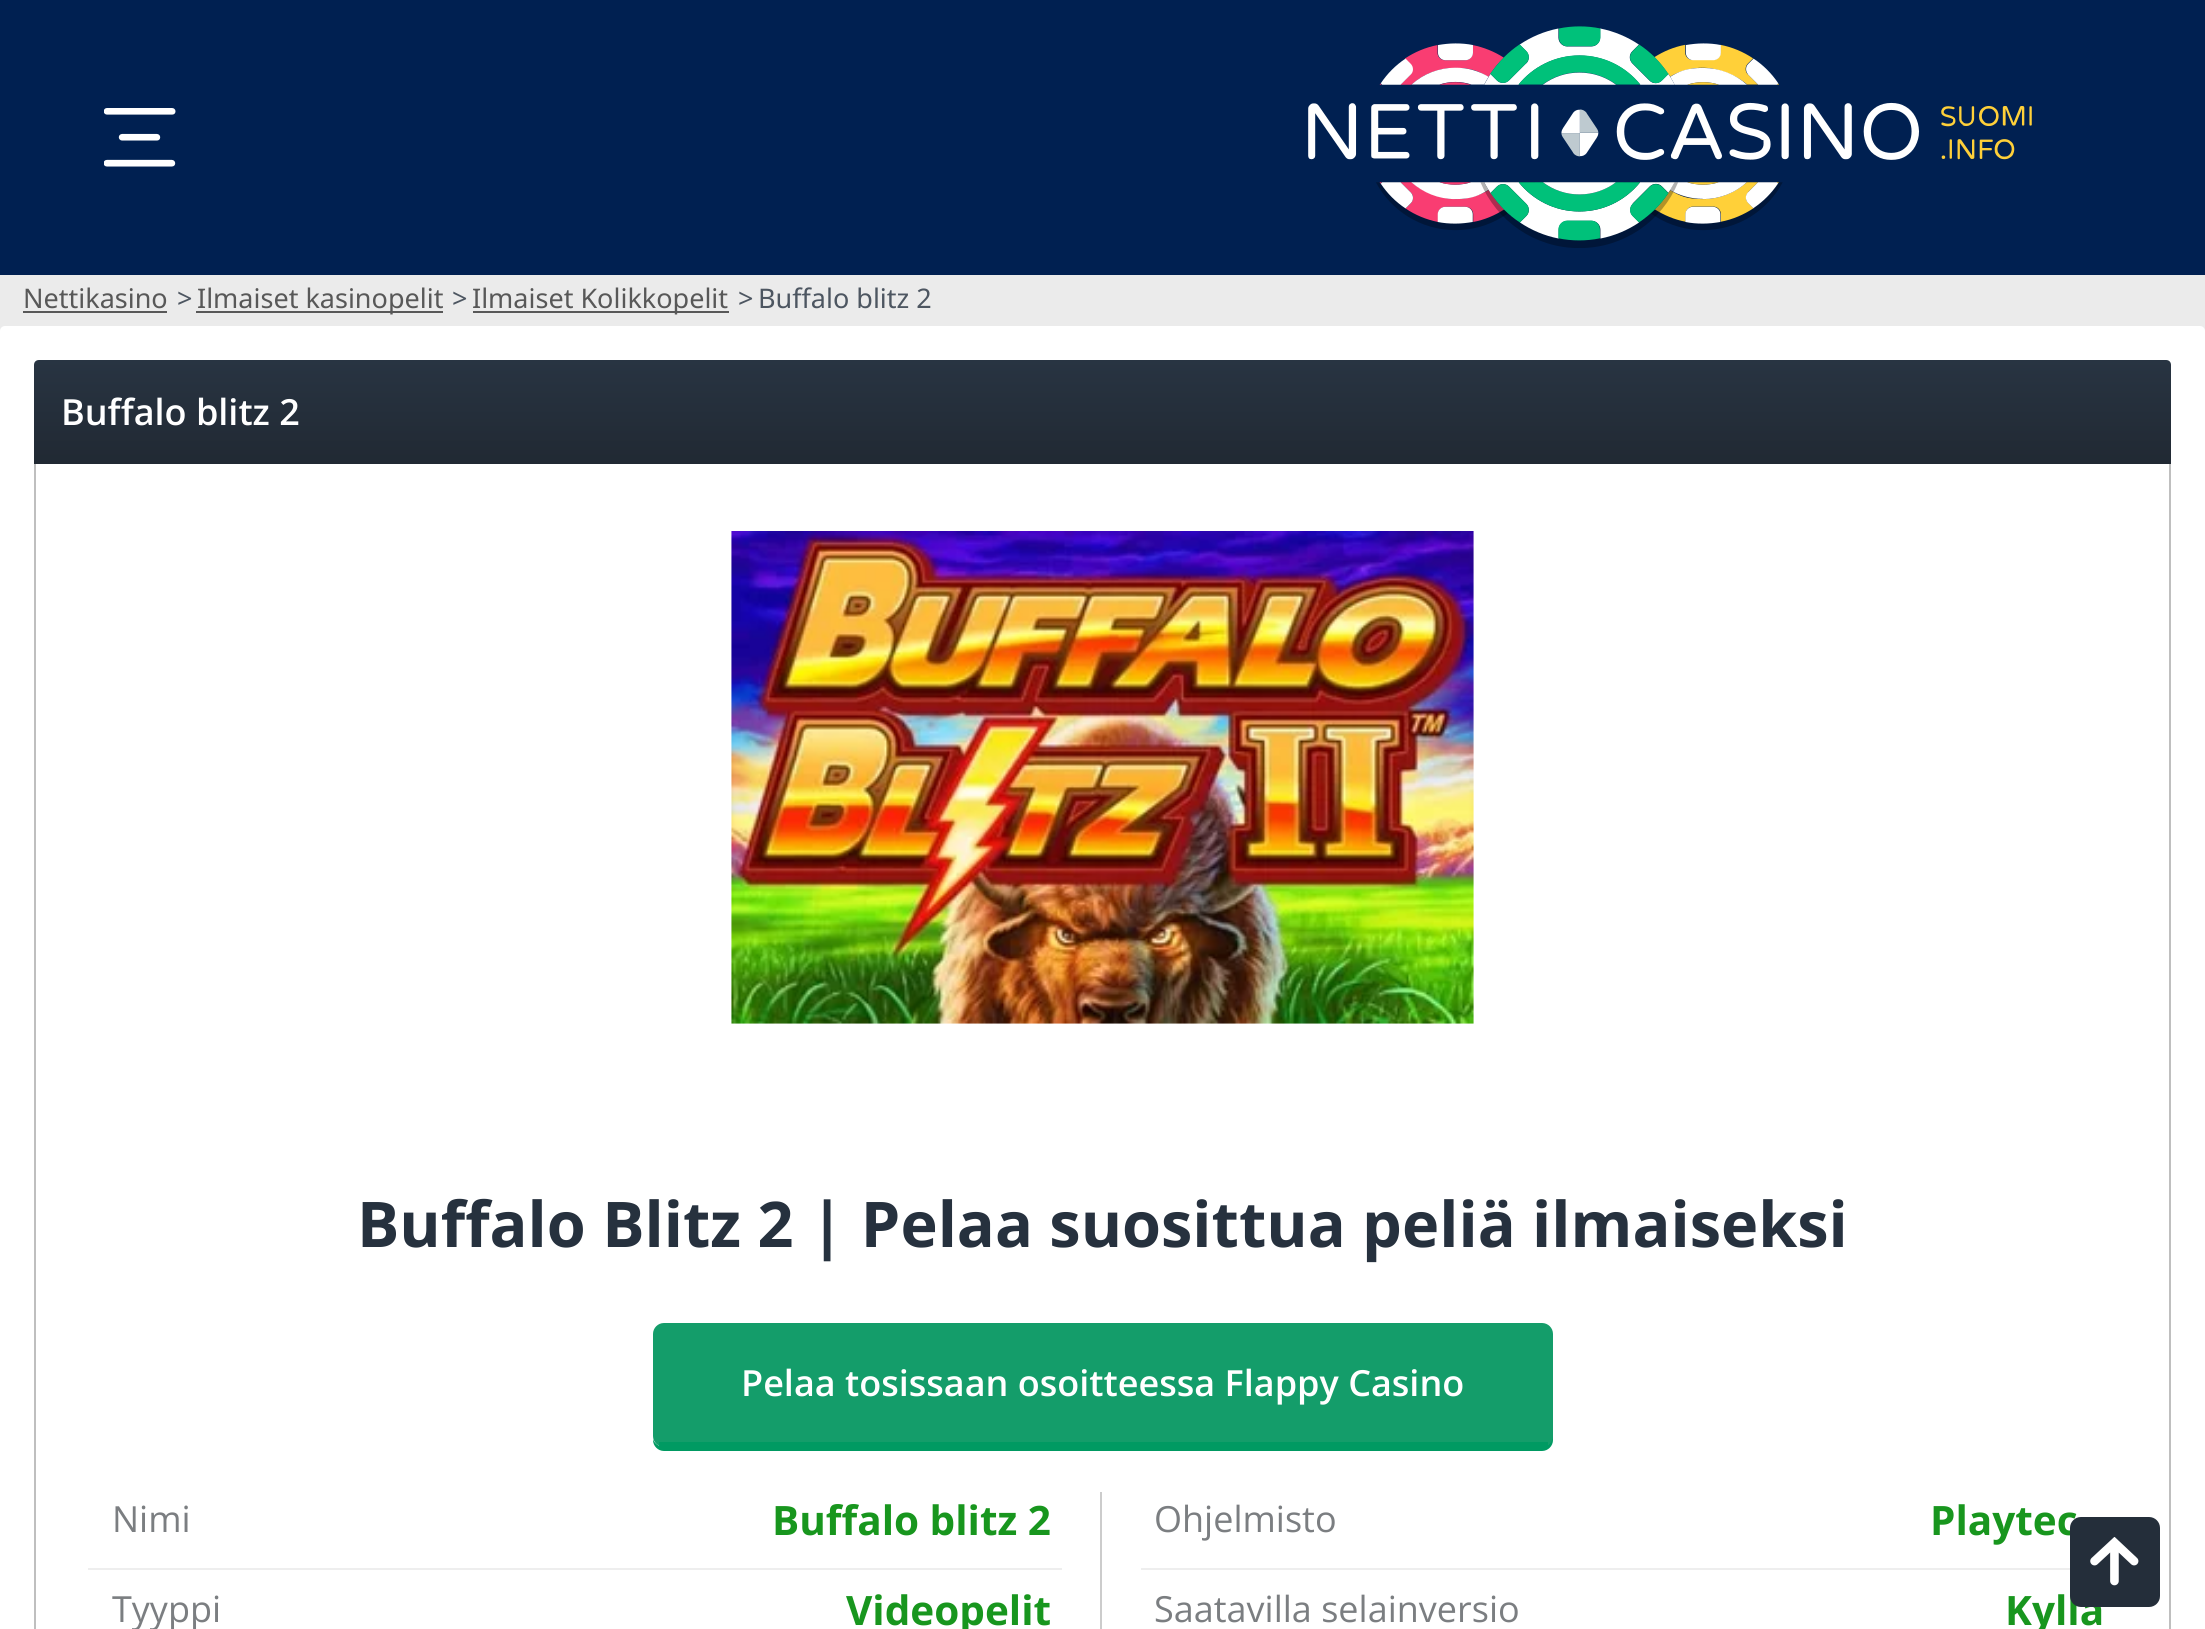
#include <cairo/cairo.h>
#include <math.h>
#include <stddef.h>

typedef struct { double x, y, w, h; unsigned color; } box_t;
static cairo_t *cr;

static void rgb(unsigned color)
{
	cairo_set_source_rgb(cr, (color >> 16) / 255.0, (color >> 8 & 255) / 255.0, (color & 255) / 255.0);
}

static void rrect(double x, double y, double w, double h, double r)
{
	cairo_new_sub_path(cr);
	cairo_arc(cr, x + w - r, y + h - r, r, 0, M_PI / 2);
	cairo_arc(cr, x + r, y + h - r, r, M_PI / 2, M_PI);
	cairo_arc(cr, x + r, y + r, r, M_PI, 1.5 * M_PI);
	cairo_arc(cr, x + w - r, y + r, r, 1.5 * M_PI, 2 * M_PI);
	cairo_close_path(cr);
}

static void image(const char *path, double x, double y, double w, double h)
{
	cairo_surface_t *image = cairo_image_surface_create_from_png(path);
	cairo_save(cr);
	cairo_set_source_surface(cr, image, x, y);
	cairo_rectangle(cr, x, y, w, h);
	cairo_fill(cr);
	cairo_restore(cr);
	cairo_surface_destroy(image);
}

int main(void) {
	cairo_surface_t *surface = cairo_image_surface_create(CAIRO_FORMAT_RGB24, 2205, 1629);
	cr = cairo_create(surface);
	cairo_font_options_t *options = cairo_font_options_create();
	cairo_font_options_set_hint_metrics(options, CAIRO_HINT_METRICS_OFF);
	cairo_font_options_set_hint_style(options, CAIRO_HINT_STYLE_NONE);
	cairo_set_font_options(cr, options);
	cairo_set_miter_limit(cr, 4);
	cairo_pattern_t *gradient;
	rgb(0xebebeb);
	cairo_paint(cr);
	rgb(0x002051);
	cairo_rectangle(cr, 0, 0, 2205, 275);
	cairo_fill(cr);
	image("img/1.png", 104, 108, 72, 59);
	image("img/2.png", 1308, 26, 724, 222);
	{
		static const box_t items[] = {
			{23, 311, 144, 2, 0x585858},
			{196, 311, 247, 2, 0x585858},
			{473, 311, 256, 2, 0x585858},
		};
		for (size_t i = 0; i < sizeof items / sizeof *items; i++) {
			rgb(items[i].color);
			cairo_rectangle(cr, items[i].x, items[i].y, items[i].w, items[i].h);
			cairo_fill(cr);
		}
	}
	rgb(0xffffff);
	rrect(0, 326, 2205, 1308, 5);
	cairo_fill(cr);
	gradient = cairo_pattern_create_linear(1103, 464, 1103, 360);
	cairo_pattern_add_color_stop_rgba(gradient, 0, 0.129, 0.161, 0.2, 1);
	cairo_pattern_add_color_stop_rgba(gradient, 1, 0.157, 0.204, 0.259, 1);
	cairo_set_source(cr, gradient);
	cairo_pattern_destroy(gradient);
	cairo_new_path(cr);
	cairo_move_to(cr, 39, 360);
	cairo_line_to(cr, 2166, 360);
	cairo_curve_to(cr, 2169, 360, 2171, 362, 2171, 365);
	cairo_line_to(cr, 2171, 464);
	cairo_line_to(cr, 34, 464);
	cairo_line_to(cr, 34, 365);
	cairo_curve_to(cr, 34, 362, 36, 360, 39, 360);
	cairo_close_path(cr);
	cairo_fill(cr);
	rgb(0xbfbfbf);
	cairo_set_fill_rule(cr, CAIRO_FILL_RULE_EVEN_ODD);
	cairo_new_path(cr);
	cairo_move_to(cr, 34, 464);
	cairo_line_to(cr, 2171, 464);
	cairo_line_to(cr, 2171, 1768);
	cairo_curve_to(cr, 2171, 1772, 2168, 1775, 2164, 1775);
	cairo_line_to(cr, 40, 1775);
	cairo_curve_to(cr, 37, 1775, 34, 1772, 34, 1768);
	cairo_close_path(cr);
	cairo_move_to(cr, 36, 464);
	cairo_line_to(cr, 2169, 464);
	cairo_line_to(cr, 2169, 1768);
	cairo_curve_to(cr, 2169, 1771, 2167, 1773, 2164, 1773);
	cairo_line_to(cr, 40, 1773);
	cairo_curve_to(cr, 38, 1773, 36, 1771, 36, 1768);
	cairo_close_path(cr);
	cairo_fill(cr);
	image("img/3.png", 731, 531, 743, 493);
	rgb(0x009a62);
	cairo_set_fill_rule(cr, CAIRO_FILL_RULE_WINDING);
	cairo_new_path(cr);
	cairo_move_to(cr, 653, 1439);
	cairo_line_to(cr, 653, 1440);
	cairo_curve_to(cr, 653, 1446, 658, 1451, 664, 1451);
	cairo_line_to(cr, 1542, 1451);
	cairo_curve_to(cr, 1548, 1451, 1553, 1446, 1553, 1440);
	cairo_line_to(cr, 1553, 1339);
	cairo_line_to(cr, 1552, 1336);
	cairo_line_to(cr, 1552, 1436);
	cairo_curve_to(cr, 1552, 1442, 1547, 1447, 1541, 1447);
	cairo_line_to(cr, 664, 1447);
	cairo_curve_to(cr, 659, 1447, 654, 1443, 653, 1439);
	cairo_close_path(cr);
	cairo_fill(cr);
	rgb(0x149d6a);
	rrect(653, 1323, 900, 124, 11);
	cairo_fill(cr);
	{
		static const box_t items[] = {
			{659, 1442, 889, 5, 0x009a62},
			{88, 1568, 974, 2, 0xeeeeee},
			{1141, 1568, 929, 2, 0xeeeeee},
			{1100, 1492, 2, 137, 0xcccccc},
		};
		for (size_t i = 0; i < sizeof items / sizeof *items; i++) {
			rgb(items[i].color);
			cairo_rectangle(cr, items[i].x, items[i].y, items[i].w, items[i].h);
			cairo_fill(cr);
		}
	}
	cairo_select_font_face(cr, "Noto Sans", CAIRO_FONT_SLANT_NORMAL, CAIRO_FONT_WEIGHT_NORMAL);
	cairo_set_font_size(cr, 27);
	rgb(0x585858);
	cairo_move_to(cr, 23, 308);
	cairo_show_text(cr, "Nettikasino");
	rgb(0x4d5661);
	cairo_move_to(cr, 177, 308);
	cairo_show_text(cr, ">");
	rgb(0x585858);
	cairo_move_to(cr, 197, 308);
	cairo_show_text(cr, "Ilmaiset kasinopelit");
	rgb(0x4d5661);
	cairo_move_to(cr, 452, 308);
	cairo_show_text(cr, ">");
	rgb(0x585858);
	cairo_move_to(cr, 472, 308);
	cairo_show_text(cr, "Ilmaiset Kolikkopelit");
	rgb(0x4d5661);
	cairo_move_to(cr, 738, 308);
	cairo_show_text(cr, ">");
	cairo_move_to(cr, 758, 308);
	cairo_show_text(cr, "Buffalo blitz 2");
	cairo_select_font_face(cr, "Open Sans SemiBold", CAIRO_FONT_SLANT_NORMAL, CAIRO_FONT_WEIGHT_NORMAL);
	cairo_set_font_size(cr, 36);
	rgb(0xffffff);
	cairo_move_to(cr, 61, 425);
	cairo_show_text(cr, "Buffalo blitz 2");
	cairo_select_font_face(cr, "Open Sans", CAIRO_FONT_SLANT_NORMAL, CAIRO_FONT_WEIGHT_BOLD);
	cairo_set_font_size(cr, 63);
	rgb(0x26313e);
	cairo_move_to(cr, 357, 1247);
	cairo_show_text(cr, "Buffalo Blitz 2 | Pelaa suosittua peliä ilmaiseksi");
	cairo_select_font_face(cr, "Open Sans SemiBold", CAIRO_FONT_SLANT_NORMAL, CAIRO_FONT_WEIGHT_NORMAL);
	cairo_set_font_size(cr, 36);
	rgb(0xffffff);
	cairo_move_to(cr, 741, 1396);
	cairo_show_text(cr, "Pelaa tosissaan osoitteessa Flappy Casino");
	cairo_select_font_face(cr, "Open Sans", CAIRO_FONT_SLANT_NORMAL, CAIRO_FONT_WEIGHT_NORMAL);
	rgb(0x7b7e81);
	cairo_move_to(cr, 112, 1532);
	cairo_show_text(cr, "Nimi");
	cairo_select_font_face(cr, "Open Sans", CAIRO_FONT_SLANT_NORMAL, CAIRO_FONT_WEIGHT_BOLD);
	cairo_set_font_size(cr, 40.5);
	rgb(0x18961e);
	cairo_move_to(cr, 772, 1535);
	cairo_show_text(cr, "Buffalo blitz 2");
	cairo_select_font_face(cr, "Open Sans", CAIRO_FONT_SLANT_NORMAL, CAIRO_FONT_WEIGHT_NORMAL);
	cairo_set_font_size(cr, 36);
	rgb(0x7b7e81);
	cairo_move_to(cr, 1154, 1532);
	cairo_show_text(cr, "Ohjelmisto");
	cairo_select_font_face(cr, "Open Sans", CAIRO_FONT_SLANT_NORMAL, CAIRO_FONT_WEIGHT_BOLD);
	cairo_set_font_size(cr, 40.5);
	rgb(0x18961e);
	cairo_move_to(cr, 1930, 1535);
	cairo_show_text(cr, "Playtec");
	cairo_select_font_face(cr, "Open Sans", CAIRO_FONT_SLANT_NORMAL, CAIRO_FONT_WEIGHT_NORMAL);
	cairo_set_font_size(cr, 36);
	rgb(0x7b7e81);
	cairo_move_to(cr, 112, 1622);
	cairo_show_text(cr, "Tyyppi");
	cairo_select_font_face(cr, "Open Sans", CAIRO_FONT_SLANT_NORMAL, CAIRO_FONT_WEIGHT_BOLD);
	cairo_set_font_size(cr, 40.5);
	rgb(0x18961e);
	cairo_move_to(cr, 846, 1625);
	cairo_show_text(cr, "Videopelit");
	cairo_select_font_face(cr, "Open Sans", CAIRO_FONT_SLANT_NORMAL, CAIRO_FONT_WEIGHT_NORMAL);
	cairo_set_font_size(cr, 36);
	rgb(0x7b7e81);
	cairo_move_to(cr, 1154, 1622);
	cairo_show_text(cr, "Saatavilla selainversio");
	cairo_select_font_face(cr, "Open Sans", CAIRO_FONT_SLANT_NORMAL, CAIRO_FONT_WEIGHT_BOLD);
	cairo_set_font_size(cr, 40.5);
	rgb(0x18961e);
	cairo_move_to(cr, 2005, 1625);
	cairo_show_text(cr, "Kyllä");
	rgb(0x242e3a);
	rrect(2070, 1517, 90, 90, 11);
	cairo_fill(cr);
	image("img/4.png", 2090, 1537, 49, 49);
	cairo_surface_write_to_png(surface, "page.png");
	cairo_font_options_destroy(options);
	cairo_destroy(cr);
	cairo_surface_destroy(surface);
	return 0;
}
